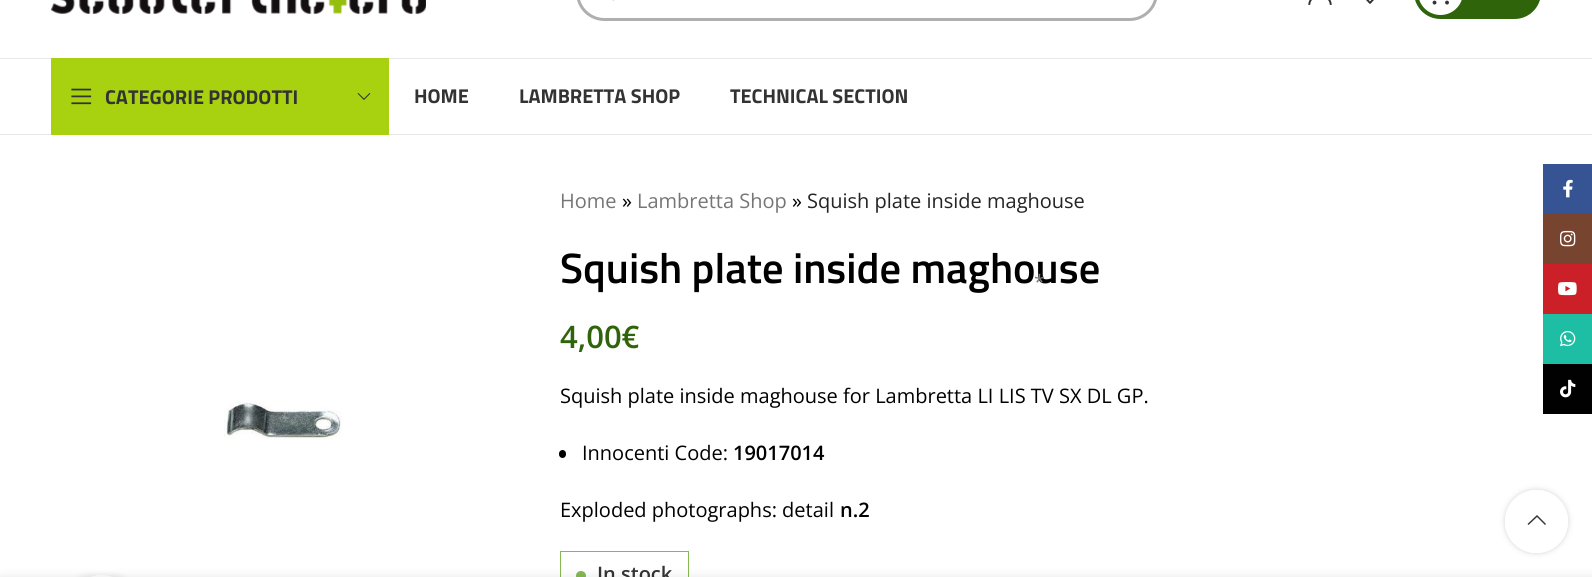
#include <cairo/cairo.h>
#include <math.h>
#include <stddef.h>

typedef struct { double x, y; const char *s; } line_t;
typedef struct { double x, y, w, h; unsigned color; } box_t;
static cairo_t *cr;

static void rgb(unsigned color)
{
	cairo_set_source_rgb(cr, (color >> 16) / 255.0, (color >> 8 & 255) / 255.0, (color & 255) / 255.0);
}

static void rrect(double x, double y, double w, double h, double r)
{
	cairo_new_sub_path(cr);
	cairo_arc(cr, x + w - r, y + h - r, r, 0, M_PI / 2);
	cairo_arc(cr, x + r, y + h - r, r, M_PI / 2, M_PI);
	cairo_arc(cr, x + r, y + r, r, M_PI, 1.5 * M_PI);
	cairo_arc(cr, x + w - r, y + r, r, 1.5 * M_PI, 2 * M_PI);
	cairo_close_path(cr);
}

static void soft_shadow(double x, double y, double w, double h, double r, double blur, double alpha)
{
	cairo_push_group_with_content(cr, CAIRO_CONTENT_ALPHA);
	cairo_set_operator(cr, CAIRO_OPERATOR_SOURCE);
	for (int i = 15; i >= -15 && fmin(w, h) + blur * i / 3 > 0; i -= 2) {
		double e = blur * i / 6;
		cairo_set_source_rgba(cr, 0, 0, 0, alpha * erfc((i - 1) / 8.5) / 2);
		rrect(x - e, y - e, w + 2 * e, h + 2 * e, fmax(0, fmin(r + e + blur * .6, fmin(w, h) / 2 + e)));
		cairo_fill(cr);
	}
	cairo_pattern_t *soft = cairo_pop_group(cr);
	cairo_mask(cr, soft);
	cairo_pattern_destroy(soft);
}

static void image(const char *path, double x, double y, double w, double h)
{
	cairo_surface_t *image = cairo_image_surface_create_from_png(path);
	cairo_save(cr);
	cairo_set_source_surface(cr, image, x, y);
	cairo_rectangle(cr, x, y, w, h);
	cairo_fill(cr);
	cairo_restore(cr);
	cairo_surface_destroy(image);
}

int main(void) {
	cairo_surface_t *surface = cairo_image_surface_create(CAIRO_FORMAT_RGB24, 1592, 577);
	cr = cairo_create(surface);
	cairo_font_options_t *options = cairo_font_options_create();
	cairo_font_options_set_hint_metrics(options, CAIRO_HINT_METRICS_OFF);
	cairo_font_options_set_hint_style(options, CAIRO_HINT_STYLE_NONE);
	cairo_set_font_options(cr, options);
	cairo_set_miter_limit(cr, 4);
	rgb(0xffffff);
	cairo_paint(cr);
	{
		static const box_t items[] = {
			{0, 134, 1592, 1, 0xe8e8e8},
			{0, 58, 1592, 1, 0xe8e8e8},
			{51, 58, 338, 77, 0xa8d20f},
		};
		for (size_t i = 0; i < sizeof items / sizeof *items; i++) {
			rgb(items[i].color);
			cairo_rectangle(cr, items[i].x, items[i].y, items[i].w, items[i].h);
			cairo_fill(cr);
		}
	}
	image("img/1.png", 71, 88, 21, 17);
	image("img/2.png", 357, 93, 14, 7);
	image("img/3.png", 51, 0, 375, 14);
	rrect(577.5, -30.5, 579, 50, 27);
	rgb(0xafafaf);
	cairo_set_line_width(cr, 3);
	cairo_stroke(cr);
	image("img/4.png", 612, 0, 2, 1);
	image("img/5.png", 1366, 0, 8, 4);
	rgb(0x2f640b);
	rrect(1414, -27, 127, 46, 26.5);
	cairo_fill(cr);
	rgb(0xffffff);
	rrect(1418, -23, 45, 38, 22.5);
	cairo_fill(cr);
	image("img/6.png", 1432, 0, 17, 5);
	image("img/7.png", 1308, 0, 24, 5);
	image("img/8.png", 224, 400, 118, 43);
	rgb(0x000000);
	soft_shadow(70, 575, 63, 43, 31.5, 3, 0.08);
	rgb(0xffffff);
	rrect(70, 575, 63, 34, 31.5);
	cairo_fill(cr);
	rgb(0x000000);
	rrect(559, 450, 7, 8, 3.5);
	cairo_fill(cr);
	cairo_rectangle(cr, 560.5, 551.5, 128, 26);
	rgb(0x85b951);
	cairo_set_line_width(cr, 1);
	cairo_stroke(cr);
	cairo_arc(cr, 581, 576, 5, 0, 2 * M_PI);
	cairo_fill(cr);
	rgb(0x365493);
	cairo_rectangle(cr, 1543, 164, 49, 50);
	cairo_fill(cr);
	image("img/9.png", 1563, 179, 10, 19);
	rgb(0x774430);
	cairo_rectangle(cr, 1543, 214, 49, 50);
	cairo_fill(cr);
	image("img/10.png", 1560, 230, 16, 17);
	rgb(0xcb2027);
	cairo_rectangle(cr, 1543, 264, 49, 50);
	cairo_fill(cr);
	image("img/11.png", 1558, 282, 19, 14);
	rgb(0x1ebea5);
	cairo_rectangle(cr, 1543, 314, 49, 50);
	cairo_fill(cr);
	image("img/12.png", 1560, 330, 16, 17);
	rgb(0x010101);
	cairo_rectangle(cr, 1543, 364, 49, 50);
	cairo_fill(cr);
	image("img/13.png", 1560, 379, 16, 19);
	cairo_save(cr);
	cairo_set_fill_rule(cr, CAIRO_FILL_RULE_EVEN_ODD);
	cairo_new_path(cr);
	cairo_move_to(cr, 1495, 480);
	cairo_line_to(cr, 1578, 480);
	cairo_line_to(cr, 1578, 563);
	cairo_line_to(cr, 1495, 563);
	cairo_close_path(cr);
	cairo_move_to(cr, 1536.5, 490);
	cairo_curve_to(cr, 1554, 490, 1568, 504, 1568, 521.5);
	cairo_curve_to(cr, 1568, 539, 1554, 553, 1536.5, 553);
	cairo_curve_to(cr, 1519, 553, 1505, 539, 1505, 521.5);
	cairo_curve_to(cr, 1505, 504, 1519, 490, 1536.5, 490);
	cairo_close_path(cr);
	cairo_clip(cr);
	rgb(0x000000);
	soft_shadow(1505, 490, 63, 63, 31.5, 3, 0.17);
	cairo_restore(cr);
	cairo_set_source_rgba(cr, 1, 1, 1, 0.9);
	cairo_arc(cr, 1536.5, 521.5, 31.5, 0, 2 * M_PI);
	cairo_fill(cr);
	rgb(0x333333);
	cairo_new_path(cr);
	cairo_move_to(cr, 1545, 525);
	cairo_line_to(cr, 1546, 524);
	cairo_line_to(cr, 1537, 515);
	cairo_line_to(cr, 1527.5, 524);
	cairo_line_to(cr, 1528.5, 525);
	cairo_line_to(cr, 1537, 517);
	cairo_close_path(cr);
	cairo_fill(cr);
	rgb(0x000000);
	soft_shadow(0, 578, 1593, 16, 0, 5.5, 0.12);
	cairo_select_font_face(cr, "Titillium Web", CAIRO_FONT_SLANT_NORMAL, CAIRO_FONT_WEIGHT_BOLD);
	cairo_set_font_size(cr, 20);
	rgb(0x333333);
	{
		static const line_t items[] = {
			{105, 104, "CATEGORIE PRODOTTI"},
			{414, 103, "HOME"},
			{519, 103, "LAMBRETTA SHOP"},
			{730, 103, "TECHNICAL SECTION"},
		};
		for (size_t i = 0; i < sizeof items / sizeof *items; i++) {
			cairo_move_to(cr, items[i].x, items[i].y);
			cairo_show_text(cr, items[i].s);
		}
	}
	cairo_select_font_face(cr, "Open Sans", CAIRO_FONT_SLANT_NORMAL, CAIRO_FONT_WEIGHT_NORMAL);
	rgb(0x767676);
	cairo_move_to(cr, 560, 208);
	cairo_show_text(cr, "Home");
	rgb(0x000000);
	cairo_move_to(cr, 622, 208);
	cairo_show_text(cr, "»");
	rgb(0x767676);
	cairo_move_to(cr, 637, 208);
	cairo_show_text(cr, "Lambretta Shop");
	rgb(0x000000);
	cairo_move_to(cr, 792, 208);
	cairo_show_text(cr, "»");
	rgb(0x242424);
	cairo_move_to(cr, 807, 208);
	cairo_show_text(cr, "Squish plate inside maghouse");
	cairo_select_font_face(cr, "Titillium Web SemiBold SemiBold", CAIRO_FONT_SLANT_NORMAL, CAIRO_FONT_WEIGHT_NORMAL);
	cairo_set_font_size(cr, 42.5);
	rgb(0x000000);
	cairo_move_to(cr, 560, 283);
	cairo_show_text(cr, "Squish plate inside maghouse");
	cairo_select_font_face(cr, "Open Sans", CAIRO_FONT_SLANT_NORMAL, CAIRO_FONT_WEIGHT_NORMAL);
	cairo_set_font_size(cr, 20);
	rgb(0x7d7d7d);
	cairo_move_to(cr, 1034, 289);
	cairo_show_text(cr, "*");
	cairo_select_font_face(cr, "Open Sans SemiBold", CAIRO_FONT_SLANT_NORMAL, CAIRO_FONT_WEIGHT_NORMAL);
	cairo_set_font_size(cr, 31);
	rgb(0x2f640b);
	cairo_move_to(cr, 560, 348);
	cairo_show_text(cr, "4,00€");
	cairo_select_font_face(cr, "Open Sans", CAIRO_FONT_SLANT_NORMAL, CAIRO_FONT_WEIGHT_NORMAL);
	cairo_set_font_size(cr, 20);
	rgb(0x000000);
	cairo_move_to(cr, 560, 403);
	cairo_show_text(cr, "Squish plate inside maghouse for Lambretta LI LIS TV SX DL GP.");
	cairo_move_to(cr, 582, 460);
	cairo_show_text(cr, "Innocenti Code:");
	cairo_select_font_face(cr, "Open Sans SemiBold", CAIRO_FONT_SLANT_NORMAL, CAIRO_FONT_WEIGHT_NORMAL);
	cairo_move_to(cr, 733, 460);
	cairo_show_text(cr, "19017014");
	cairo_select_font_face(cr, "Open Sans", CAIRO_FONT_SLANT_NORMAL, CAIRO_FONT_WEIGHT_NORMAL);
	cairo_move_to(cr, 560, 517);
	cairo_show_text(cr, "Exploded photographs: detail");
	cairo_select_font_face(cr, "Open Sans SemiBold", CAIRO_FONT_SLANT_NORMAL, CAIRO_FONT_WEIGHT_NORMAL);
	cairo_move_to(cr, 840, 517);
	cairo_show_text(cr, "n.2");
	rgb(0x333333);
	cairo_move_to(cr, 597, 581);
	cairo_show_text(cr, "In stock");
	cairo_surface_write_to_png(surface, "page.png");
	cairo_font_options_destroy(options);
	cairo_destroy(cr);
	cairo_surface_destroy(surface);
	return 0;
}
